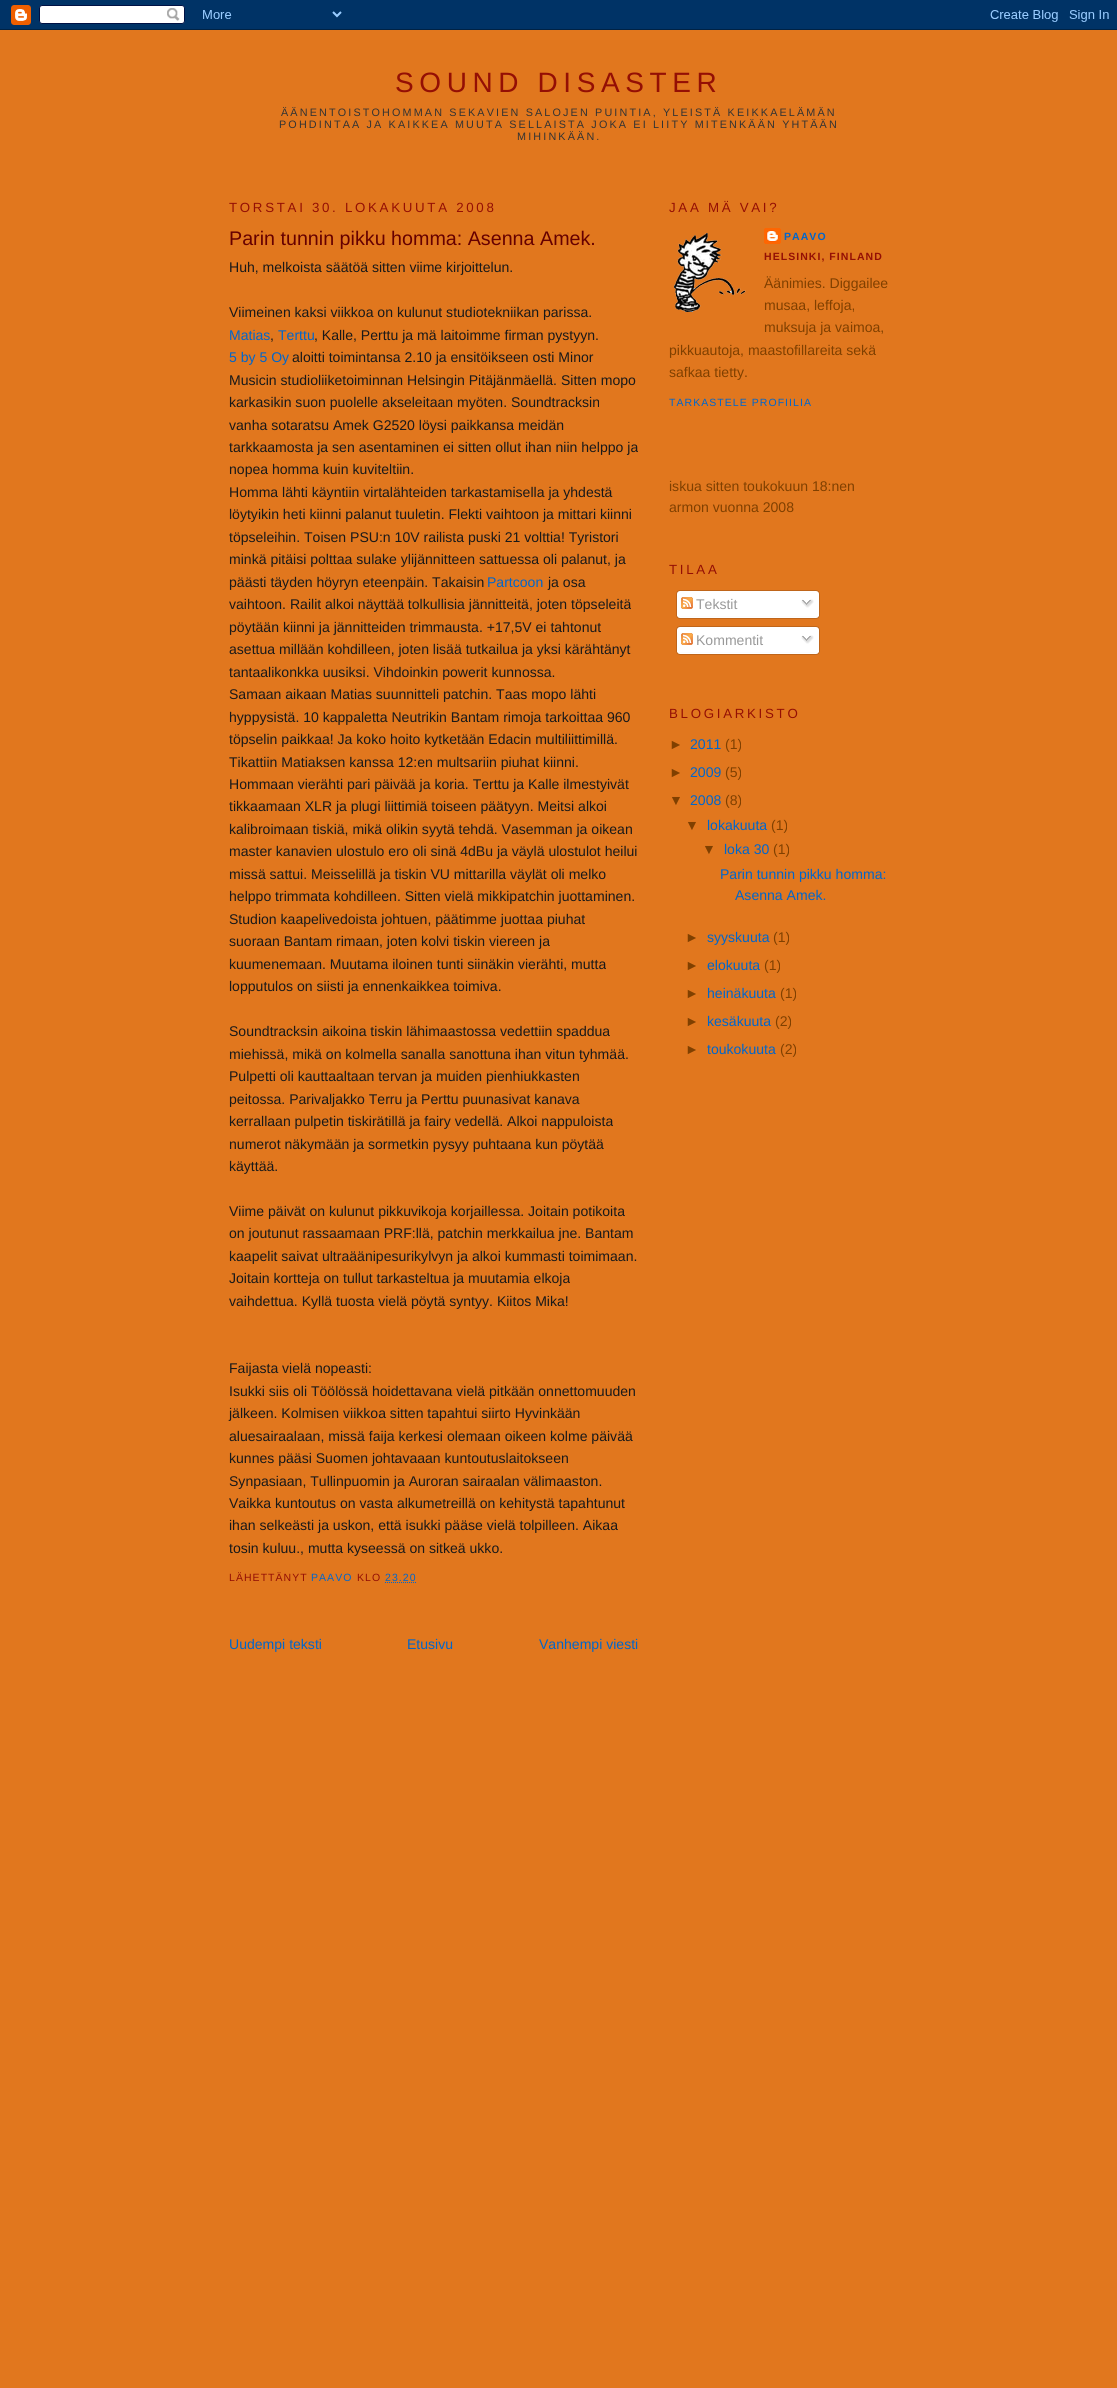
#include <cairo/cairo.h>
#include <math.h>
#include <stddef.h>

typedef struct { double x, y; const char *s; } line_t;
static cairo_t *cr;

static void rgb(unsigned color)
{
	cairo_set_source_rgb(cr, (color >> 16) / 255.0, (color >> 8 & 255) / 255.0, (color & 255) / 255.0);
}

static void tracked(double x, double y, const char *s, double letter, double word)
{
	cairo_move_to(cr, x, y);
	while (*s) {
		char ch[5] = {0};
		int n = 0;
		do ch[n++] = *s++; while ((*s & 0xC0) == 0x80);
		cairo_show_text(cr, ch);
		cairo_rel_move_to(cr, letter + word * (*ch == ' '), 0);
	}
}

static void image(const char *path, double x, double y, double w, double h)
{
	cairo_surface_t *image = cairo_image_surface_create_from_png(path);
	cairo_save(cr);
	cairo_set_source_surface(cr, image, x, y);
	cairo_rectangle(cr, x, y, w, h);
	cairo_fill(cr);
	cairo_restore(cr);
	cairo_surface_destroy(image);
}

int main(void) {
	cairo_surface_t *surface = cairo_image_surface_create(CAIRO_FORMAT_RGB24, 1117, 2388);
	cr = cairo_create(surface);
	cairo_font_options_t *options = cairo_font_options_create();
	cairo_font_options_set_hint_metrics(options, CAIRO_HINT_METRICS_OFF);
	cairo_font_options_set_hint_style(options, CAIRO_HINT_STYLE_NONE);
	cairo_set_font_options(cr, options);
	cairo_set_miter_limit(cr, 4);
	rgb(0xe1771e);
	cairo_paint(cr);
	image("img/1.png", 0, 0, 1117, 30);
	cairo_new_path(cr);
	cairo_move_to(cr, 385, 1582.5);
	cairo_line_to(cr, 416.5, 1582.5);
	rgb(0x0066cc);
	cairo_set_line_width(cr, 1);
	cairo_set_dash(cr, (double[]){1, 1}, 2, 0);
	cairo_stroke(cr);
	image("img/2.png", 764, 228, 17, 16);
	image("img/3.png", 674, 233, 72, 79);
	image("img/4.png", 676, 590, 144, 26);
	image("img/5.png", 681, 597, 12, 12);
	image("img/6.png", 801, 599, 13, 9);
	image("img/7.png", 676, 616, 144, 3);
	image("img/4.png", 676, 626, 144, 26);
	image("img/5.png", 681, 633, 12, 12);
	image("img/6.png", 801, 635, 13, 9);
	image("img/7.png", 676, 652, 144, 3);
	cairo_select_font_face(cr, "Liberation Sans", CAIRO_FONT_SLANT_NORMAL, CAIRO_FONT_WEIGHT_NORMAL);
	cairo_set_font_size(cr, 28);
	rgb(0x940f04);
	tracked(395, 92, "SOUND DISASTER", 5.6, 0);
	cairo_set_font_size(cr, 10.8);
	rgb(0x333333);
	{
		static const line_t items[] = {
			{281, 116, "ÄÄNENTOISTOHOMMAN SEKAVIEN SALOJEN PUINTIA, YLEISTÄ KEIKKAELÄMÄN"},
			{279, 128, "POHDINTAA JA KAIKKEA MUUTA SELLAISTA JOKA EI LIITY MITENKÄÄN YHTÄÄN"},
			{517, 140, "MIHINKÄÄN."},
		};
		for (size_t i = 0; i < sizeof items / sizeof *items; i++) {
			tracked(items[i].x, items[i].y, items[i].s, 2.15, 0);
		}
	}
	cairo_set_font_size(cr, 13.3);
	rgb(0x940f04);
	tracked(229, 212, "TORSTAI 30. LOKAKUUTA 2008", 2.7, 0);
	cairo_set_font_size(cr, 19.7);
	rgb(0x660000);
	cairo_move_to(cr, 229, 245);
	cairo_show_text(cr, "Parin tunnin pikku homma: Asenna Amek.");
	cairo_set_font_size(cr, 14.05);
	rgb(0x191919);
	cairo_move_to(cr, 229, 272);
	cairo_show_text(cr, "Huh, melkoista säätöä sitten viime kirjoittelun.");
	cairo_move_to(cr, 229, 317);
	cairo_show_text(cr, "Viimeinen kaksi viikkoa on kulunut studiotekniikan parissa.");
	rgb(0x0066cc);
	cairo_move_to(cr, 229, 340);
	cairo_show_text(cr, "Matias");
	rgb(0x191919);
	cairo_move_to(cr, 270, 340);
	cairo_show_text(cr, ",");
	rgb(0x0066cc);
	cairo_move_to(cr, 278, 340);
	cairo_show_text(cr, "Terttu");
	rgb(0x191919);
	cairo_move_to(cr, 314, 340);
	cairo_show_text(cr, ", Kalle, Perttu ja mä laitoimme firman pystyyn.");
	rgb(0x0066cc);
	cairo_move_to(cr, 229, 362);
	cairo_show_text(cr, "5 by 5 Oy");
	rgb(0x191919);
	{
		static const line_t items[] = {
			{292, 362, "aloitti toimintansa 2.10 ja ensitöikseen osti Minor"},
			{229, 385, "Musicin studioliiketoiminnan Helsingin Pitäjänmäellä. Sitten mopo"},
			{229, 407, "karkasikin suon puolelle akseleitaan myöten. Soundtracksin"},
			{229, 430, "vanha sotaratsu Amek G2520 löysi paikkansa meidän"},
			{229, 452, "tarkkaamosta ja sen asentaminen ei sitten ollut ihan niin helppo ja"},
			{229, 474, "nopea homma kuin kuviteltiin."},
			{229, 497, "Homma lähti käyntiin virtalähteiden tarkastamisella ja yhdestä"},
			{229, 519, "löytyikin heti kiinni palanut tuuletin. Flekti vaihtoon ja mittari kiinni"},
			{229, 542, "töpseleihin. Toisen PSU:n 10V railista puski 21 volttia! Tyristori"},
			{229, 564, "minkä pitäisi polttaa sulake ylijännitteen sattuessa oli palanut, ja"},
			{229, 587, "päästi täyden höyryn eteenpäin. Takaisin"},
		};
		for (size_t i = 0; i < sizeof items / sizeof *items; i++) {
			cairo_move_to(cr, items[i].x, items[i].y);
			cairo_show_text(cr, items[i].s);
		}
	}
	rgb(0x0066cc);
	cairo_move_to(cr, 487, 587);
	cairo_show_text(cr, "Partcoon");
	rgb(0x191919);
	{
		static const line_t items[] = {
			{548, 587, "ja osa"},
			{229, 609, "vaihtoon. Railit alkoi näyttää tolkullisia jännitteitä, joten töpseleitä"},
			{229, 632, "pöytään kiinni ja jännitteiden trimmausta. +17,5V ei tahtonut"},
			{229, 654, "asettua millään kohdilleen, joten lisää tutkailua ja yksi kärähtänyt"},
			{229, 677, "tantaalikonkka uusiksi. Vihdoinkin powerit kunnossa."},
			{229, 699, "Samaan aikaan Matias suunnitteli patchin. Taas mopo lähti"},
			{229, 722, "hyppysistä. 10 kappaletta Neutrikin Bantam rimoja tarkoittaa 960"},
			{229, 744, "töpselin paikkaa! Ja koko hoito kytketään Edacin multiliittimillä."},
			{229, 767, "Tikattiin Matiaksen kanssa 12:en multsariin piuhat kiinni."},
			{229, 789, "Hommaan vierähti pari päivää ja koria. Terttu ja Kalle ilmestyivät"},
			{229, 811, "tikkaamaan XLR ja plugi liittimiä toiseen päätyyn. Meitsi alkoi"},
			{229, 834, "kalibroimaan tiskiä, mikä olikin syytä tehdä. Vasemman ja oikean"},
			{229, 856, "master kanavien ulostulo ero oli sinä 4dBu ja väylä ulostulot heilui"},
			{229, 879, "missä sattui. Meisselillä ja tiskin VU mittarilla väylät oli melko"},
			{229, 901, "helppo trimmata kohdilleen. Sitten vielä mikkipatchin juottaminen."},
			{229, 924, "Studion kaapelivedoista johtuen, päätimme juottaa piuhat"},
			{229, 946, "suoraan Bantam rimaan, joten kolvi tiskin viereen ja"},
			{229, 969, "kuumenemaan. Muutama iloinen tunti siinäkin vierähti, mutta"},
			{229, 991, "lopputulos on siisti ja ennenkaikkea toimiva."},
			{229, 1036, "Soundtracksin aikoina tiskin lähimaastossa vedettiin spaddua"},
			{229, 1059, "miehissä, mikä on kolmella sanalla sanottuna ihan vitun tyhmää."},
			{229, 1081, "Pulpetti oli kauttaaltaan tervan ja muiden pienhiukkasten"},
			{229, 1104, "peitossa. Parivaljakko Terru ja Perttu puunasivat kanava"},
			{229, 1126, "kerrallaan pulpetin tiskirätillä ja fairy vedellä. Alkoi nappuloista"},
			{229, 1149, "numerot näkymään ja sormetkin pysyy puhtaana kun pöytää"},
			{229, 1171, "käyttää."},
			{229, 1216, "Viime päivät on kulunut pikkuvikoja korjaillessa. Joitain potikoita"},
			{229, 1238, "on joutunut rassaamaan PRF:llä, patchin merkkailua jne. Bantam"},
			{229, 1261, "kaapelit saivat ultraäänipesurikylvyn ja alkoi kummasti toimimaan."},
			{229, 1283, "Joitain kortteja on tullut tarkasteltua ja muutamia elkoja"},
			{229, 1306, "vaihdettua. Kyllä tuosta vielä pöytä syntyy. Kiitos Mika!"},
			{229, 1373, "Faijasta vielä nopeasti:"},
			{229, 1396, "Isukki siis oli Töölössä hoidettavana vielä pitkään onnettomuuden"},
			{229, 1418, "jälkeen. Kolmisen viikkoa sitten tapahtui siirto Hyvinkään"},
			{229, 1441, "aluesairaalaan, missä faija kerkesi olemaan oikeen kolme päivää"},
			{229, 1463, "kunnes pääsi Suomen johtavaaan kuntoutuslaitokseen"},
			{229, 1486, "Synpasiaan, Tullinpuomin ja Auroran sairaalan välimaaston."},
			{229, 1508, "Vaikka kuntoutus on vasta alkumetreillä on kehitystä tapahtunut"},
			{229, 1530, "ihan selkeästi ja uskon, että isukki pääse vielä tolpilleen. Aikaa"},
			{229, 1553, "tosin kuluu., mutta kyseessä on sitkeä ukko."},
		};
		for (size_t i = 0; i < sizeof items / sizeof *items; i++) {
			cairo_move_to(cr, items[i].x, items[i].y);
			cairo_show_text(cr, items[i].s);
		}
	}
	cairo_set_font_size(cr, 10.5);
	rgb(0x940f04);
	tracked(229, 1581, "LÄHETTÄNYT", 1.05, 0);
	rgb(0x0066cc);
	tracked(311, 1581, "PAAVO", 1.05, 0);
	rgb(0x940f04);
	tracked(357, 1581, "KLO", 1.05, 0);
	rgb(0x0066cc);
	tracked(385, 1581, "23.20", 1.05, 0);
	cairo_set_font_size(cr, 14.05);
	{
		static const line_t items[] = {
			{229, 1649, "Uudempi teksti"},
			{407, 1649, "Etusivu"},
			{539, 1649, "Vanhempi viesti"},
		};
		for (size_t i = 0; i < sizeof items / sizeof *items; i++) {
			cairo_move_to(cr, items[i].x, items[i].y);
			cairo_show_text(cr, items[i].s);
		}
	}
	cairo_set_font_size(cr, 13.3);
	rgb(0x940f04);
	tracked(669, 212, "JAA MÄ VAI?", 2.7, 0);
	cairo_select_font_face(cr, "Liberation Sans", CAIRO_FONT_SLANT_NORMAL, CAIRO_FONT_WEIGHT_BOLD);
	cairo_set_font_size(cr, 10.5);
	rgb(0x0066cc);
	tracked(784, 240, "PAAVO", 1.05, 0);
	rgb(0x940f04);
	tracked(764, 260, "HELSINKI, FINLAND", 1.05, 0);
	cairo_select_font_face(cr, "Liberation Sans", CAIRO_FONT_SLANT_NORMAL, CAIRO_FONT_WEIGHT_NORMAL);
	cairo_set_font_size(cr, 14.05);
	rgb(0x804000);
	{
		static const line_t items[] = {
			{764, 288, "Äänimies. Diggailee"},
			{764, 310, "musaa, leffoja,"},
			{764, 332, "muksuja ja vaimoa,"},
			{669, 355, "pikkuautoja, maastofillareita sekä"},
			{669, 377, "safkaa tietty."},
		};
		for (size_t i = 0; i < sizeof items / sizeof *items; i++) {
			cairo_move_to(cr, items[i].x, items[i].y);
			cairo_show_text(cr, items[i].s);
		}
	}
	cairo_set_font_size(cr, 10.5);
	rgb(0x0066cc);
	tracked(669, 406, "TARKASTELE PROFIILIA", 1.05, 0);
	cairo_set_font_size(cr, 14.05);
	rgb(0x804000);
	cairo_move_to(cr, 669, 491);
	cairo_show_text(cr, "iskua sitten toukokuun 18:nen");
	cairo_move_to(cr, 669, 512);
	cairo_show_text(cr, "armon vuonna 2008");
	cairo_set_font_size(cr, 13.3);
	rgb(0x940f04);
	tracked(669, 574, "TILAA", 2.7, 0);
	cairo_set_font_size(cr, 14.05);
	rgb(0x999999);
	cairo_move_to(cr, 696, 609);
	cairo_show_text(cr, "Tekstit");
	cairo_move_to(cr, 696, 645);
	cairo_show_text(cr, "Kommentit");
	cairo_set_font_size(cr, 13.3);
	rgb(0x940f04);
	tracked(669, 718, "BLOGIARKISTO", 2.7, 0);
	cairo_set_font_size(cr, 14.05);
	rgb(0x804000);
	cairo_move_to(cr, 669, 749);
	cairo_show_text(cr, "►");
	rgb(0x0066cc);
	cairo_move_to(cr, 690, 749);
	cairo_show_text(cr, "2011");
	rgb(0x804000);
	cairo_move_to(cr, 725, 749);
	cairo_show_text(cr, "(1)");
	cairo_move_to(cr, 669, 777);
	cairo_show_text(cr, "►");
	rgb(0x0066cc);
	cairo_move_to(cr, 690, 777);
	cairo_show_text(cr, "2009");
	rgb(0x804000);
	cairo_move_to(cr, 725, 777);
	cairo_show_text(cr, "(5)");
	cairo_move_to(cr, 669, 805);
	cairo_show_text(cr, "▼");
	rgb(0x0066cc);
	cairo_move_to(cr, 690, 805);
	cairo_show_text(cr, "2008");
	rgb(0x804000);
	cairo_move_to(cr, 725, 805);
	cairo_show_text(cr, "(8)");
	cairo_move_to(cr, 685, 830);
	cairo_show_text(cr, "▼");
	rgb(0x0066cc);
	cairo_move_to(cr, 707, 830);
	cairo_show_text(cr, "lokakuuta");
	rgb(0x804000);
	cairo_move_to(cr, 771, 830);
	cairo_show_text(cr, "(1)");
	cairo_move_to(cr, 702, 854);
	cairo_show_text(cr, "▼");
	rgb(0x0066cc);
	cairo_move_to(cr, 724, 854);
	cairo_show_text(cr, "loka 30");
	rgb(0x804000);
	cairo_move_to(cr, 773, 854);
	cairo_show_text(cr, "(1)");
	rgb(0x0066cc);
	cairo_move_to(cr, 720, 879);
	cairo_show_text(cr, "Parin tunnin pikku homma:");
	cairo_move_to(cr, 735, 900);
	cairo_show_text(cr, "Asenna Amek.");
	rgb(0x804000);
	cairo_move_to(cr, 685, 942);
	cairo_show_text(cr, "►");
	rgb(0x0066cc);
	cairo_move_to(cr, 707, 942);
	cairo_show_text(cr, "syyskuuta");
	rgb(0x804000);
	cairo_move_to(cr, 773, 942);
	cairo_show_text(cr, "(1)");
	cairo_move_to(cr, 685, 970);
	cairo_show_text(cr, "►");
	rgb(0x0066cc);
	cairo_move_to(cr, 707, 970);
	cairo_show_text(cr, "elokuuta");
	rgb(0x804000);
	cairo_move_to(cr, 764, 970);
	cairo_show_text(cr, "(1)");
	cairo_move_to(cr, 685, 998);
	cairo_show_text(cr, "►");
	rgb(0x0066cc);
	cairo_move_to(cr, 707, 998);
	cairo_show_text(cr, "heinäkuuta");
	rgb(0x804000);
	cairo_move_to(cr, 780, 998);
	cairo_show_text(cr, "(1)");
	cairo_move_to(cr, 685, 1026);
	cairo_show_text(cr, "►");
	rgb(0x0066cc);
	cairo_move_to(cr, 707, 1026);
	cairo_show_text(cr, "kesäkuuta");
	rgb(0x804000);
	cairo_move_to(cr, 775, 1026);
	cairo_show_text(cr, "(2)");
	cairo_move_to(cr, 685, 1054);
	cairo_show_text(cr, "►");
	rgb(0x0066cc);
	cairo_move_to(cr, 707, 1054);
	cairo_show_text(cr, "toukokuuta");
	rgb(0x804000);
	cairo_move_to(cr, 780, 1054);
	cairo_show_text(cr, "(2)");
	cairo_surface_write_to_png(surface, "page.png");
	cairo_font_options_destroy(options);
	cairo_destroy(cr);
	cairo_surface_destroy(surface);
	return 0;
}
